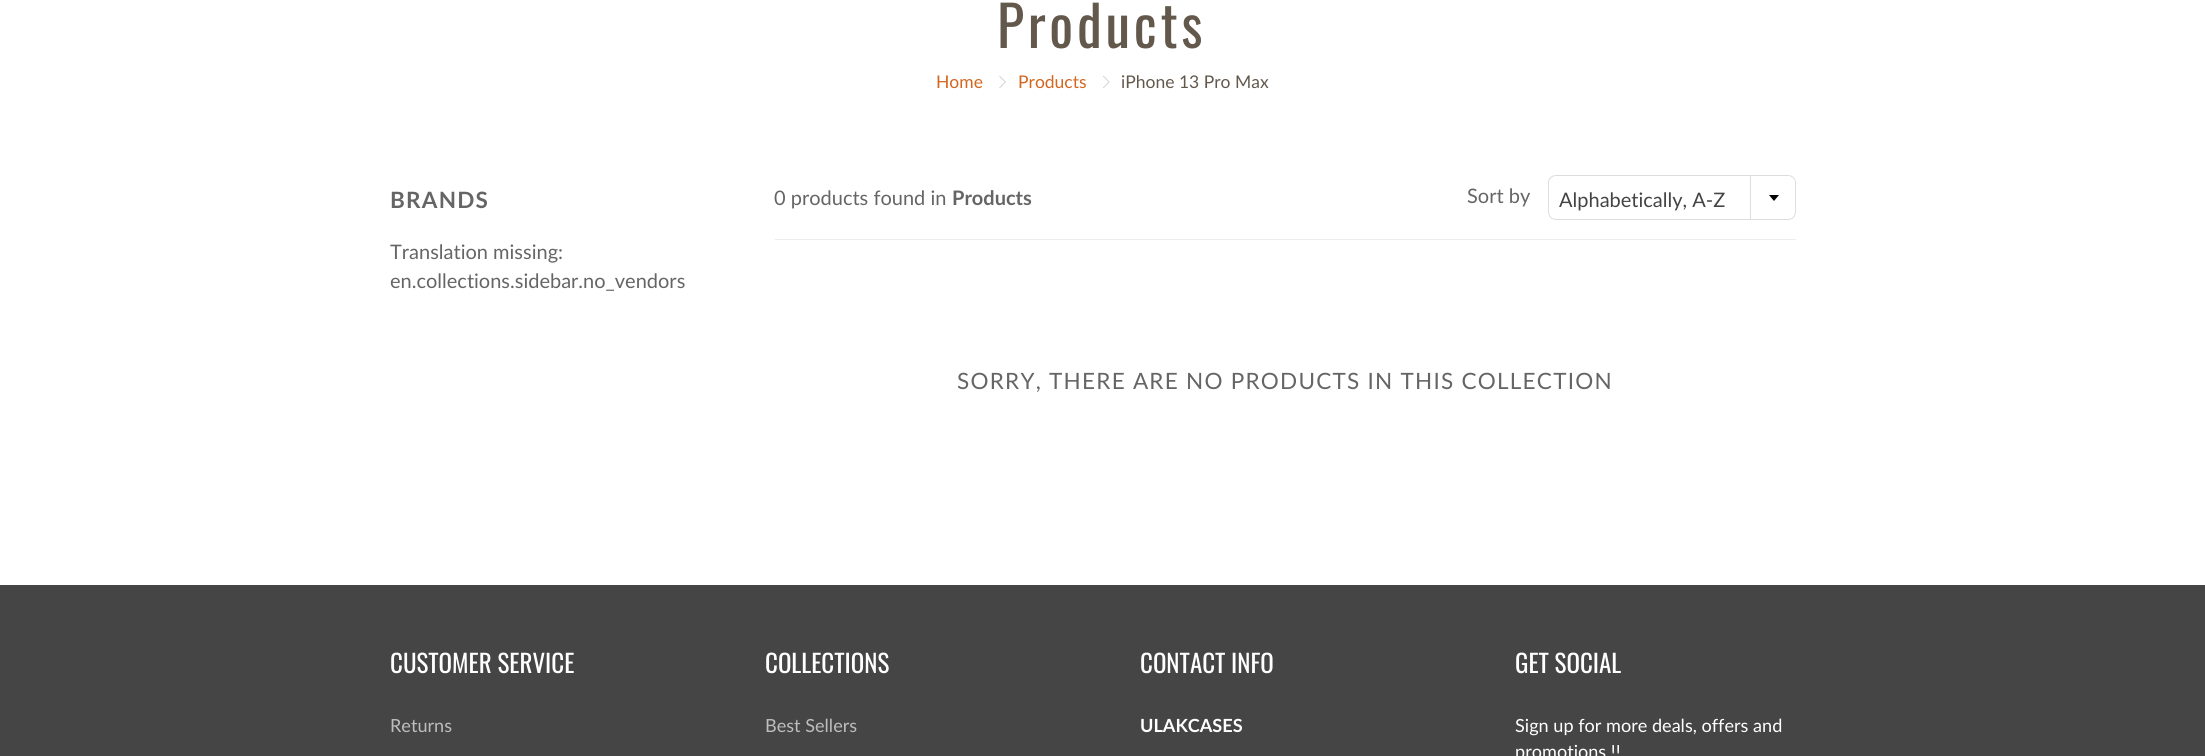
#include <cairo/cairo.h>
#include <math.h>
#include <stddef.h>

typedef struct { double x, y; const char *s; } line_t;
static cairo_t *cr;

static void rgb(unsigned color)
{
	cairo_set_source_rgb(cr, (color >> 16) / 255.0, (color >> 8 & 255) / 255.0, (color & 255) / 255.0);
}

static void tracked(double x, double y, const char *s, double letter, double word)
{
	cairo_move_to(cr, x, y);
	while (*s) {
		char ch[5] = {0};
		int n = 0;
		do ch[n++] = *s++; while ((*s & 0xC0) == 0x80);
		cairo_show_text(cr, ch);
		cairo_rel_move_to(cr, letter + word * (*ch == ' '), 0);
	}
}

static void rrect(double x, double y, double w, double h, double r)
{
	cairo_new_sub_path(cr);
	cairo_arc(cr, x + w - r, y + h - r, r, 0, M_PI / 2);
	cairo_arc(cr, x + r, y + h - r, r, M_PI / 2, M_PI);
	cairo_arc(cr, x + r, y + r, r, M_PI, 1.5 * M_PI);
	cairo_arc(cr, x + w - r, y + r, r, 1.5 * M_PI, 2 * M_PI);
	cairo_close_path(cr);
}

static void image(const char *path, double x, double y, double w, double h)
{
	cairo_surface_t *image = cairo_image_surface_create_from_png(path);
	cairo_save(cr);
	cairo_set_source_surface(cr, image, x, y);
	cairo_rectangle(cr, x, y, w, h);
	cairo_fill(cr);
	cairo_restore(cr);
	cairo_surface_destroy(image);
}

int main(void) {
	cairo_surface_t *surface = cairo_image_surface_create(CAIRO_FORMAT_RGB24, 2205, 756);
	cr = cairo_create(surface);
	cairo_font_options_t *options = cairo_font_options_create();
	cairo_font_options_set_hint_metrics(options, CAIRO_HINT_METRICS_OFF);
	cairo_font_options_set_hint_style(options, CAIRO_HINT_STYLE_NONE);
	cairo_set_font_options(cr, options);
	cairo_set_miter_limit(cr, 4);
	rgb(0xffffff);
	cairo_paint(cr);
	image("img/1.png", 999, 75, 7, 14);
	image("img/2.png", 1103, 75, 7, 14);
	rgb(0xededed);
	cairo_rectangle(cr, 775, 239, 1021, 1);
	cairo_fill(cr);
	rrect(1548.5, 175.5, 247, 44, 7.5);
	rgb(0xdddddd);
	cairo_set_line_width(cr, 1);
	cairo_stroke(cr);
	rgb(0xffffff);
	cairo_new_path(cr);
	cairo_move_to(cr, 1750, 176);
	cairo_line_to(cr, 1787, 176);
	cairo_curve_to(cr, 1791.5, 176, 1795, 179.5, 1795, 184);
	cairo_line_to(cr, 1795, 211);
	cairo_curve_to(cr, 1795, 215.5, 1791.5, 219, 1787, 219);
	cairo_line_to(cr, 1750, 219);
	cairo_close_path(cr);
	cairo_fill(cr);
	rgb(0xdddddd);
	cairo_rectangle(cr, 1750, 176, 1, 43);
	cairo_fill(cr);
	rgb(0x000000);
	cairo_new_path(cr);
	cairo_move_to(cr, 1769, 195);
	cairo_line_to(cr, 1779, 195);
	cairo_line_to(cr, 1774, 201);
	cairo_close_path(cr);
	cairo_fill(cr);
	rgb(0x454545);
	cairo_rectangle(cr, 0, 585, 2205, 171);
	cairo_fill(cr);
	cairo_select_font_face(cr, "Oswald", CAIRO_FONT_SLANT_NORMAL, CAIRO_FONT_WEIGHT_NORMAL);
	cairo_set_font_size(cr, 56);
	rgb(0x63584c);
	tracked(997, 48, "Products", 3.75, 0);
	cairo_select_font_face(cr, "Lato", CAIRO_FONT_SLANT_NORMAL, CAIRO_FONT_WEIGHT_NORMAL);
	cairo_set_font_size(cr, 17.5);
	rgb(0xd4651f);
	cairo_move_to(cr, 936, 88);
	cairo_show_text(cr, "Home");
	cairo_move_to(cr, 1018, 88);
	cairo_show_text(cr, "Products");
	rgb(0x63584c);
	cairo_move_to(cr, 1121, 88);
	cairo_show_text(cr, "iPhone 13 Pro Max");
	cairo_select_font_face(cr, "Lato", CAIRO_FONT_SLANT_NORMAL, CAIRO_FONT_WEIGHT_BOLD);
	cairo_set_font_size(cr, 22.5);
	rgb(0x666565);
	tracked(390, 208, "BRANDS", 1.25, 0);
	cairo_select_font_face(cr, "Lato", CAIRO_FONT_SLANT_NORMAL, CAIRO_FONT_WEIGHT_NORMAL);
	cairo_set_font_size(cr, 20);
	{
		static const line_t items[] = {
			{390, 259, "Translation missing:"},
			{390, 288, "en.collections.sidebar.no_vendors"},
			{774, 205, "0 products found in"},
		};
		for (size_t i = 0; i < sizeof items / sizeof *items; i++) {
			cairo_move_to(cr, items[i].x, items[i].y);
			cairo_show_text(cr, items[i].s);
		}
	}
	cairo_select_font_face(cr, "Lato", CAIRO_FONT_SLANT_NORMAL, CAIRO_FONT_WEIGHT_BOLD);
	cairo_move_to(cr, 952, 205);
	cairo_show_text(cr, "Products");
	cairo_select_font_face(cr, "Lato", CAIRO_FONT_SLANT_NORMAL, CAIRO_FONT_WEIGHT_NORMAL);
	cairo_move_to(cr, 1467, 203);
	cairo_show_text(cr, "Sort by");
	rgb(0x444444);
	cairo_move_to(cr, 1559, 207);
	cairo_show_text(cr, "Alphabetically, A-Z");
	cairo_set_font_size(cr, 22.5);
	rgb(0x666565);
	tracked(957, 389, "SORRY, THERE ARE NO PRODUCTS IN THIS COLLECTION", 1.25, 0);
	cairo_select_font_face(cr, "Oswald", CAIRO_FONT_SLANT_NORMAL, CAIRO_FONT_WEIGHT_NORMAL);
	cairo_set_font_size(cr, 25);
	rgb(0xffffff);
	cairo_move_to(cr, 390, 673);
	cairo_show_text(cr, "CUSTOMER SERVICE");
	cairo_select_font_face(cr, "Lato", CAIRO_FONT_SLANT_NORMAL, CAIRO_FONT_WEIGHT_NORMAL);
	cairo_set_font_size(cr, 18.1);
	rgb(0xbdbdbd);
	cairo_move_to(cr, 390, 732);
	cairo_show_text(cr, "Returns");
	cairo_select_font_face(cr, "Oswald", CAIRO_FONT_SLANT_NORMAL, CAIRO_FONT_WEIGHT_NORMAL);
	cairo_set_font_size(cr, 25);
	rgb(0xffffff);
	cairo_move_to(cr, 765, 673);
	cairo_show_text(cr, "COLLECTIONS");
	cairo_select_font_face(cr, "Lato", CAIRO_FONT_SLANT_NORMAL, CAIRO_FONT_WEIGHT_NORMAL);
	cairo_set_font_size(cr, 18.1);
	rgb(0xbdbdbd);
	cairo_move_to(cr, 765, 732);
	cairo_show_text(cr, "Best Sellers");
	cairo_select_font_face(cr, "Oswald", CAIRO_FONT_SLANT_NORMAL, CAIRO_FONT_WEIGHT_NORMAL);
	cairo_set_font_size(cr, 25);
	rgb(0xffffff);
	cairo_move_to(cr, 1140, 673);
	cairo_show_text(cr, "CONTACT INFO");
	cairo_select_font_face(cr, "Lato", CAIRO_FONT_SLANT_NORMAL, CAIRO_FONT_WEIGHT_BOLD);
	cairo_set_font_size(cr, 18.1);
	cairo_move_to(cr, 1140, 732);
	cairo_show_text(cr, "ULAKCASES");
	cairo_select_font_face(cr, "Oswald", CAIRO_FONT_SLANT_NORMAL, CAIRO_FONT_WEIGHT_NORMAL);
	cairo_set_font_size(cr, 25);
	cairo_move_to(cr, 1515, 673);
	cairo_show_text(cr, "GET SOCIAL");
	cairo_select_font_face(cr, "Lato", CAIRO_FONT_SLANT_NORMAL, CAIRO_FONT_WEIGHT_NORMAL);
	cairo_set_font_size(cr, 18.1);
	cairo_move_to(cr, 1515, 732);
	cairo_show_text(cr, "Sign up for more deals, offers and");
	cairo_move_to(cr, 1515, 758);
	cairo_show_text(cr, "promotions !!");
	cairo_surface_write_to_png(surface, "page.png");
	cairo_font_options_destroy(options);
	cairo_destroy(cr);
	cairo_surface_destroy(surface);
	return 0;
}
